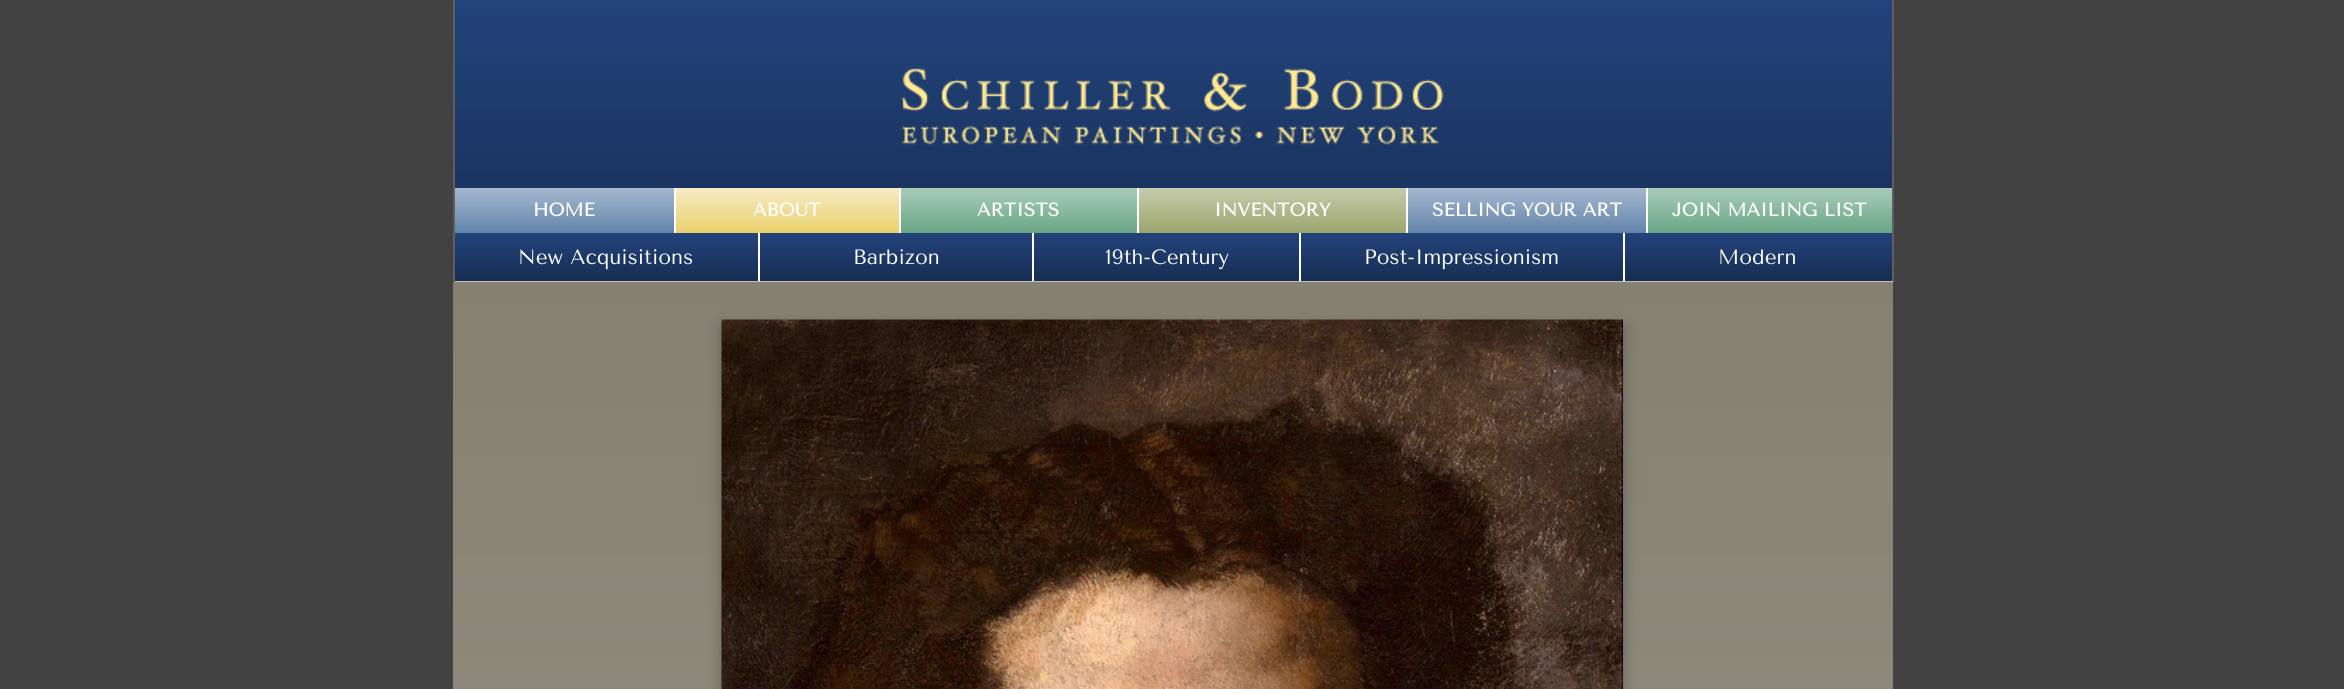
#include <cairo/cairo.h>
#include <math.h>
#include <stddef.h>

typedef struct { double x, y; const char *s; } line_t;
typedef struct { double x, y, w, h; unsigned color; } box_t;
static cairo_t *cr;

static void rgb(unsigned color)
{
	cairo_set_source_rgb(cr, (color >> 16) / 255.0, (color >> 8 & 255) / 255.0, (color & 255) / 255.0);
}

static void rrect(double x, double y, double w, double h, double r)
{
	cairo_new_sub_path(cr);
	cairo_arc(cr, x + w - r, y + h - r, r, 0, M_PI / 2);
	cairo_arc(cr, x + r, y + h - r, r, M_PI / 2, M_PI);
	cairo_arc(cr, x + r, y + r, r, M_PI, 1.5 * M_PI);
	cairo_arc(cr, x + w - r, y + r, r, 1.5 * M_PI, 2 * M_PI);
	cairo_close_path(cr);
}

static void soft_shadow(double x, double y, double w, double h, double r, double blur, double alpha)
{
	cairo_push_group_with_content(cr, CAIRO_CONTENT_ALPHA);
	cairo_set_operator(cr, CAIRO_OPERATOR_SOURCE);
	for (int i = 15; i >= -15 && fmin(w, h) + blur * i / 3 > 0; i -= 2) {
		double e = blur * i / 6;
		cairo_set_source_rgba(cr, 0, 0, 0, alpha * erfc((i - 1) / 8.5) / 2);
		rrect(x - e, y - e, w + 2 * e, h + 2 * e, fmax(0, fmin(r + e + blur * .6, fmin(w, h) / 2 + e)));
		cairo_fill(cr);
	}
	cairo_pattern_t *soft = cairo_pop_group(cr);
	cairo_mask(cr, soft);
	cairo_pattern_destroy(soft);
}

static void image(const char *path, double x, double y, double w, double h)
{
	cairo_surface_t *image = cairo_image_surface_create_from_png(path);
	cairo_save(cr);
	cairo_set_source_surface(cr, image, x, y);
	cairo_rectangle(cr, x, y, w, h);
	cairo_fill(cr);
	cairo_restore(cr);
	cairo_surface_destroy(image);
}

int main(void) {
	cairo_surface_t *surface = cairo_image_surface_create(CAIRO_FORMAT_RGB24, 2344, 689);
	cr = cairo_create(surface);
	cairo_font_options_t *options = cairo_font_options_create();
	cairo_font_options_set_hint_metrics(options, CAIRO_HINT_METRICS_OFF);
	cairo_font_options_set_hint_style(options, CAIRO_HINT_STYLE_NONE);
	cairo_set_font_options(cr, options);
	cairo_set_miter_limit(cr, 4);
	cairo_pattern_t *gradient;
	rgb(0x424242);
	cairo_paint(cr);
	gradient = cairo_pattern_create_linear(455, 0, 455, 281);
	cairo_pattern_add_color_stop_rgba(gradient, 0, 0.133, 0.263, 0.482, 1);
	cairo_pattern_add_color_stop_rgba(gradient, 1, 0.09, 0.176, 0.325, 1);
	cairo_set_source(cr, gradient);
	cairo_pattern_destroy(gradient);
	cairo_rectangle(cr, 455, 0, 1437, 188);
	cairo_fill(cr);
	{
		static const box_t items[] = {
			{1892, 0, 2, 282, 0x5e5e5e},
			{453, 281, 1440, 1, 0xc0c0c0},
			{453, 0, 2, 282, 0x5e5e5e},
		};
		for (size_t i = 0; i < sizeof items / sizeof *items; i++) {
			rgb(items[i].color);
			cairo_rectangle(cr, items[i].x, items[i].y, items[i].w, items[i].h);
			cairo_fill(cr);
		}
	}
	image("img/1.png", 901, 68, 543, 77);
	gradient = cairo_pattern_create_linear(455, 188, 455, 233);
	cairo_pattern_add_color_stop_rgba(gradient, 0, 0.647, 0.722, 0.808, 1);
	cairo_pattern_add_color_stop_rgba(gradient, 1, 0.388, 0.518, 0.667, 1);
	cairo_set_source(cr, gradient);
	cairo_pattern_destroy(gradient);
	cairo_rectangle(cr, 455, 188, 219, 45);
	cairo_fill(cr);
	gradient = cairo_pattern_create_linear(675, 188, 675, 233);
	cairo_pattern_add_color_stop_rgba(gradient, 0, 0.965, 0.925, 0.769, 1);
	cairo_pattern_add_color_stop_rgba(gradient, 1, 0.914, 0.816, 0.424, 1);
	cairo_set_source(cr, gradient);
	cairo_pattern_destroy(gradient);
	cairo_rectangle(cr, 676, 188, 223, 45);
	cairo_fill(cr);
	rgb(0xffffff);
	cairo_rectangle(cr, 674, 188, 2, 45);
	cairo_fill(cr);
	gradient = cairo_pattern_create_linear(900, 188, 900, 233);
	cairo_pattern_add_color_stop_rgba(gradient, 0, 0.659, 0.8, 0.725, 1);
	cairo_pattern_add_color_stop_rgba(gradient, 1, 0.408, 0.651, 0.522, 1);
	cairo_set_source(cr, gradient);
	cairo_pattern_destroy(gradient);
	cairo_rectangle(cr, 901, 188, 236, 45);
	cairo_fill(cr);
	rgb(0xffffff);
	cairo_rectangle(cr, 899, 188, 2, 45);
	cairo_fill(cr);
	gradient = cairo_pattern_create_linear(1139, 188, 1139, 233);
	cairo_pattern_add_color_stop_rgba(gradient, 0, 0.776, 0.8, 0.675, 1);
	cairo_pattern_add_color_stop_rgba(gradient, 1, 0.608, 0.647, 0.427, 1);
	cairo_set_source(cr, gradient);
	cairo_pattern_destroy(gradient);
	cairo_rectangle(cr, 1139, 188, 267, 45);
	cairo_fill(cr);
	rgb(0xffffff);
	cairo_rectangle(cr, 1137, 188, 2, 45);
	cairo_fill(cr);
	gradient = cairo_pattern_create_linear(1407, 188, 1407, 233);
	cairo_pattern_add_color_stop_rgba(gradient, 0, 0.647, 0.722, 0.808, 1);
	cairo_pattern_add_color_stop_rgba(gradient, 1, 0.388, 0.518, 0.667, 1);
	cairo_set_source(cr, gradient);
	cairo_pattern_destroy(gradient);
	cairo_rectangle(cr, 1408, 188, 238, 45);
	cairo_fill(cr);
	rgb(0xffffff);
	cairo_rectangle(cr, 1406, 188, 2, 45);
	cairo_fill(cr);
	gradient = cairo_pattern_create_linear(1647, 188, 1647, 233);
	cairo_pattern_add_color_stop_rgba(gradient, 0, 0.659, 0.8, 0.725, 1);
	cairo_pattern_add_color_stop_rgba(gradient, 1, 0.408, 0.651, 0.522, 1);
	cairo_set_source(cr, gradient);
	cairo_pattern_destroy(gradient);
	cairo_rectangle(cr, 1648, 188, 244, 45);
	cairo_fill(cr);
	rgb(0xffffff);
	cairo_rectangle(cr, 1646, 188, 2, 45);
	cairo_fill(cr);
	gradient = cairo_pattern_create_linear(455, 233, 455, 281);
	cairo_pattern_add_color_stop_rgba(gradient, 0, 0.133, 0.263, 0.482, 1);
	cairo_pattern_add_color_stop_rgba(gradient, 1, 0.09, 0.176, 0.325, 1);
	cairo_set_source(cr, gradient);
	cairo_pattern_destroy(gradient);
	cairo_rectangle(cr, 455, 233, 303, 48);
	cairo_fill(cr);
	gradient = cairo_pattern_create_linear(759, 233, 759, 281);
	cairo_pattern_add_color_stop_rgba(gradient, 0, 0.133, 0.263, 0.482, 1);
	cairo_pattern_add_color_stop_rgba(gradient, 1, 0.09, 0.176, 0.325, 1);
	cairo_set_source(cr, gradient);
	cairo_pattern_destroy(gradient);
	cairo_rectangle(cr, 760, 233, 272, 48);
	cairo_fill(cr);
	rgb(0xffffff);
	cairo_rectangle(cr, 758, 233, 2, 48);
	cairo_fill(cr);
	gradient = cairo_pattern_create_linear(1034, 233, 1034, 281);
	cairo_pattern_add_color_stop_rgba(gradient, 0, 0.133, 0.263, 0.482, 1);
	cairo_pattern_add_color_stop_rgba(gradient, 1, 0.09, 0.176, 0.325, 1);
	cairo_set_source(cr, gradient);
	cairo_pattern_destroy(gradient);
	cairo_rectangle(cr, 1034, 233, 265, 48);
	cairo_fill(cr);
	rgb(0xffffff);
	cairo_rectangle(cr, 1032, 233, 2, 48);
	cairo_fill(cr);
	gradient = cairo_pattern_create_linear(1301, 233, 1301, 281);
	cairo_pattern_add_color_stop_rgba(gradient, 0, 0.133, 0.263, 0.482, 1);
	cairo_pattern_add_color_stop_rgba(gradient, 1, 0.09, 0.176, 0.325, 1);
	cairo_set_source(cr, gradient);
	cairo_pattern_destroy(gradient);
	cairo_rectangle(cr, 1301, 233, 322, 48);
	cairo_fill(cr);
	rgb(0xffffff);
	cairo_rectangle(cr, 1299, 233, 2, 48);
	cairo_fill(cr);
	gradient = cairo_pattern_create_linear(1625, 233, 1625, 281);
	cairo_pattern_add_color_stop_rgba(gradient, 0, 0.133, 0.263, 0.482, 1);
	cairo_pattern_add_color_stop_rgba(gradient, 1, 0.09, 0.176, 0.325, 1);
	cairo_set_source(cr, gradient);
	cairo_pattern_destroy(gradient);
	cairo_rectangle(cr, 1625, 233, 267, 48);
	cairo_fill(cr);
	rgb(0xffffff);
	cairo_rectangle(cr, 1623, 233, 2, 48);
	cairo_fill(cr);
	gradient = cairo_pattern_create_linear(453, 282, 453, 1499);
	cairo_pattern_add_color_stop_rgba(gradient, 0, 0.522, 0.502, 0.439, 1);
	cairo_pattern_add_color_stop_rgba(gradient, 1, 0.616, 0.6, 0.545, 1);
	cairo_set_source(cr, gradient);
	cairo_pattern_destroy(gradient);
	cairo_rectangle(cr, 453, 282, 1440, 407);
	cairo_fill(cr);
	rgb(0x5e5e5e);
	soft_shadow(722, 327, 901, 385, 0, 7.5, 1);
	image("img/2.png", 721, 319, 902, 370);
	cairo_select_font_face(cr, "Tenor Sans", CAIRO_FONT_SLANT_NORMAL, CAIRO_FONT_WEIGHT_BOLD);
	cairo_set_font_size(cr, 18.5);
	rgb(0xffffff);
	{
		static const line_t items[] = {
			{533, 216, "HOME"},
			{753, 216, "ABOUT"},
			{977, 216, "ARTISTS"},
			{1214, 216, "INVENTORY"},
			{1432, 216, "SELLING YOUR ART"},
			{1672, 216, "JOIN MAILING LIST"},
		};
		for (size_t i = 0; i < sizeof items / sizeof *items; i++) {
			cairo_move_to(cr, items[i].x, items[i].y);
			cairo_show_text(cr, items[i].s);
		}
	}
	cairo_select_font_face(cr, "Tenor Sans", CAIRO_FONT_SLANT_NORMAL, CAIRO_FONT_WEIGHT_NORMAL);
	cairo_set_font_size(cr, 20.75);
	{
		static const line_t items[] = {
			{518, 264, "New Acquisitions"},
			{853, 264, "Barbizon"},
			{1105, 264, "19th-Century"},
			{1364, 264, "Post-Impressionism"},
			{1718, 264, "Modern"},
		};
		for (size_t i = 0; i < sizeof items / sizeof *items; i++) {
			cairo_move_to(cr, items[i].x, items[i].y);
			cairo_show_text(cr, items[i].s);
		}
	}
	cairo_surface_write_to_png(surface, "page.png");
	cairo_font_options_destroy(options);
	cairo_destroy(cr);
	cairo_surface_destroy(surface);
	return 0;
}
